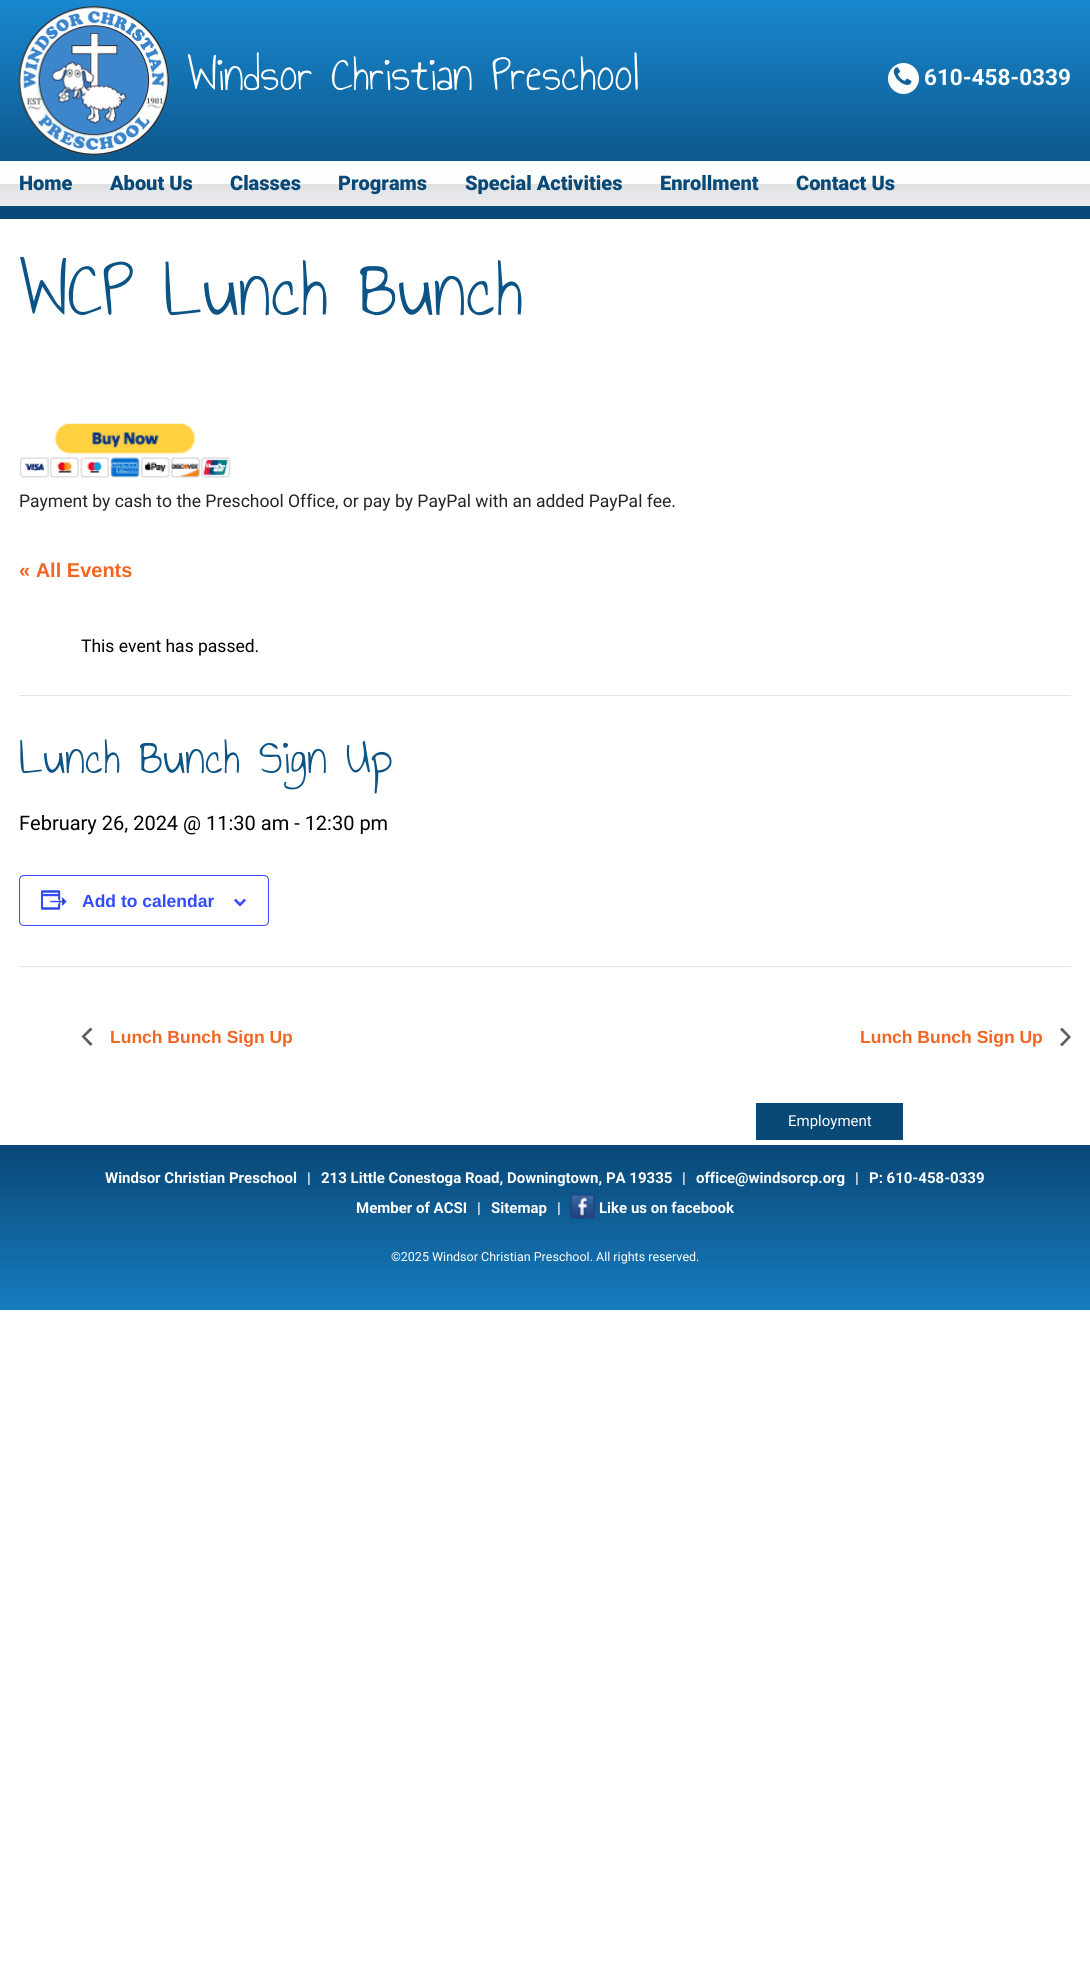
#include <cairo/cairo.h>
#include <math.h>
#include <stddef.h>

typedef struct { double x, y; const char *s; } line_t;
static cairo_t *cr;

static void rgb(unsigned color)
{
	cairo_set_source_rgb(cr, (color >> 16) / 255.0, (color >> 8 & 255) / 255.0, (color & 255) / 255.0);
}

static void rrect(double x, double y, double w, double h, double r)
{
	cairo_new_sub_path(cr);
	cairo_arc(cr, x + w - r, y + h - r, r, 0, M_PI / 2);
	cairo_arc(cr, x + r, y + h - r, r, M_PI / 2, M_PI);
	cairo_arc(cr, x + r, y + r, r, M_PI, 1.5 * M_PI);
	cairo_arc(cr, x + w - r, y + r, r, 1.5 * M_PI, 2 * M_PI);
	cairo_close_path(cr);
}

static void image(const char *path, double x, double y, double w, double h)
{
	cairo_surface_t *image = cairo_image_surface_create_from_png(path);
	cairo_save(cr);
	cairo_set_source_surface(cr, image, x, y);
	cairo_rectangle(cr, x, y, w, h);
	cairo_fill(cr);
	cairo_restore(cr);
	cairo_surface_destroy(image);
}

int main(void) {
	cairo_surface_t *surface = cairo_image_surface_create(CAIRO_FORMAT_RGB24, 1090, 1964);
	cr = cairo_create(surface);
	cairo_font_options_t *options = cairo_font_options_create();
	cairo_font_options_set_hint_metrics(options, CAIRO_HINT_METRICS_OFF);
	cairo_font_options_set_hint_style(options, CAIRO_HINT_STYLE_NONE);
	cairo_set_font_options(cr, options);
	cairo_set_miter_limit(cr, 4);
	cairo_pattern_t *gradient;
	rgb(0xffffff);
	cairo_paint(cr);
	gradient = cairo_pattern_create_linear(545, 0, 545, 219);
	cairo_pattern_add_color_stop_rgba(gradient, 0, 0.098, 0.533, 0.812, 1);
	cairo_pattern_add_color_stop_rgba(gradient, 1, 0.035, 0.278, 0.463, 1);
	cairo_set_source(cr, gradient);
	cairo_pattern_destroy(gradient);
	cairo_rectangle(cr, 0, 0, 1090, 219);
	cairo_fill(cr);
	image("img/1.png", 18, 6, 151, 149);
	rgb(0xffffff);
	cairo_arc(cr, 903.5, 78.5, 15.5, 0, 2 * M_PI);
	cairo_fill(cr);
	image("img/2.png", 893, 67, 19, 18);
	gradient = cairo_pattern_create_linear(545, 161, 545, 206);
	cairo_pattern_add_color_stop_rgba(gradient, 0, 0.988, 0.992, 1, 1);
	cairo_pattern_add_color_stop_rgba(gradient, 0.5, 0.996, 0.996, 0.996, 1);
	cairo_pattern_add_color_stop_rgba(gradient, 0.51, 0.882, 0.882, 0.882, 1);
	cairo_pattern_add_color_stop_rgba(gradient, 1, 0.91, 0.929, 0.945, 1);
	cairo_set_source(cr, gradient);
	cairo_pattern_destroy(gradient);
	cairo_rectangle(cr, 0, 161, 1090, 45);
	cairo_fill(cr);
	image("img/3.png", 20, 423, 211, 55);
	rgb(0xe4e4e4);
	cairo_rectangle(cr, 19, 695, 1052, 1);
	cairo_fill(cr);
	rrect(19.5, 875.5, 249, 50, 4.5);
	rgb(0x334aff);
	cairo_set_line_width(cr, 1);
	cairo_stroke(cr);
	image("img/4.png", 41, 890, 26, 20);
	image("img/5.png", 234, 899, 12, 7);
	rgb(0xe4e4e4);
	cairo_rectangle(cr, 19, 966, 1052, 1);
	cairo_fill(cr);
	rgb(0x5d5d5d);
	cairo_new_path(cr);
	cairo_move_to(cr, 92.5, 1044);
	cairo_line_to(cr, 90.5, 1046);
	cairo_line_to(cr, 81.5, 1036.5);
	cairo_line_to(cr, 90.5, 1027.5);
	cairo_line_to(cr, 92.5, 1029.5);
	cairo_line_to(cr, 85, 1036.5);
	cairo_close_path(cr);
	cairo_fill(cr);
	cairo_save(cr);
	cairo_rectangle(cr, 1060, 1028, 11, 18);
	cairo_clip(cr);
	cairo_new_path(cr);
	cairo_move_to(cr, 1060, 1029.5);
	cairo_line_to(cr, 1062, 1027.5);
	cairo_line_to(cr, 1071, 1037);
	cairo_line_to(cr, 1062, 1046.5);
	cairo_line_to(cr, 1060, 1044.5);
	cairo_line_to(cr, 1067.5, 1037);
	cairo_close_path(cr);
	cairo_fill(cr);
	cairo_restore(cr);
	rgb(0x084876);
	cairo_rectangle(cr, 756, 1103, 147, 37);
	cairo_fill(cr);
	gradient = cairo_pattern_create_linear(545, 1145, 545, 1310);
	cairo_pattern_add_color_stop_rgba(gradient, 0, 0.035, 0.278, 0.463, 1);
	cairo_pattern_add_color_stop_rgba(gradient, 1, 0.09, 0.49, 0.749, 1);
	cairo_set_source(cr, gradient);
	cairo_pattern_destroy(gradient);
	cairo_rectangle(cr, 0, 1145, 1090, 165);
	cairo_fill(cr);
	image("img/6.png", 570, 1193, 25, 26);
	cairo_select_font_face(cr, "Annie Use Your Telescope", CAIRO_FONT_SLANT_NORMAL, CAIRO_FONT_WEIGHT_NORMAL);
	cairo_set_font_size(cr, 50);
	rgb(0xffffff);
	cairo_move_to(cr, 187, 90);
	cairo_show_text(cr, "Windsor Christian Preschool");
	cairo_select_font_face(cr, "Roboto", CAIRO_FONT_SLANT_NORMAL, CAIRO_FONT_WEIGHT_BOLD);
	cairo_set_font_size(cr, 22.5);
	cairo_move_to(cr, 924, 85);
	cairo_show_text(cr, "610-458-0339");
	cairo_select_font_face(cr, "Roboto Black", CAIRO_FONT_SLANT_NORMAL, CAIRO_FONT_WEIGHT_NORMAL);
	cairo_set_font_size(cr, 20);
	rgb(0x084978);
	{
		static const line_t items[] = {
			{19, 190, "Home"},
			{110, 190, "About Us"},
			{230, 190, "Classes"},
			{338, 190, "Programs"},
			{465, 190, "Special Activities"},
			{660, 190, "Enrollment"},
			{796, 190, "Contact Us"},
		};
		for (size_t i = 0; i < sizeof items / sizeof *items; i++) {
			cairo_move_to(cr, items[i].x, items[i].y);
			cairo_show_text(cr, items[i].s);
		}
	}
	cairo_select_font_face(cr, "Annie Use Your Telescope", CAIRO_FONT_SLANT_NORMAL, CAIRO_FONT_WEIGHT_NORMAL);
	cairo_set_font_size(cr, 81.25);
	rgb(0x0c5386);
	cairo_move_to(cr, 19, 315);
	cairo_show_text(cr, "WCP Lunch Bunch");
	cairo_select_font_face(cr, "Roboto", CAIRO_FONT_SLANT_NORMAL, CAIRO_FONT_WEIGHT_NORMAL);
	cairo_set_font_size(cr, 17.5);
	rgb(0x252525);
	cairo_move_to(cr, 19, 507);
	cairo_show_text(cr, "Payment by cash to the Preschool Office, or pay by PayPal with an added PayPal fee.");
	cairo_select_font_face(cr, "Liberation Sans", CAIRO_FONT_SLANT_NORMAL, CAIRO_FONT_WEIGHT_BOLD);
	cairo_set_font_size(cr, 20);
	rgb(0xf26522);
	cairo_move_to(cr, 19, 577);
	cairo_show_text(cr, "« All Events");
	cairo_select_font_face(cr, "Roboto", CAIRO_FONT_SLANT_NORMAL, CAIRO_FONT_WEIGHT_NORMAL);
	cairo_set_font_size(cr, 17.5);
	rgb(0x000000);
	cairo_move_to(cr, 81, 652);
	cairo_show_text(cr, "This event has passed.");
	cairo_select_font_face(cr, "Annie Use Your Telescope", CAIRO_FONT_SLANT_NORMAL, CAIRO_FONT_WEIGHT_NORMAL);
	cairo_set_font_size(cr, 50);
	rgb(0x0c5386);
	cairo_move_to(cr, 19, 773);
	cairo_show_text(cr, "Lunch Bunch Sign Up");
	cairo_select_font_face(cr, "Roboto", CAIRO_FONT_SLANT_NORMAL, CAIRO_FONT_WEIGHT_NORMAL);
	cairo_set_font_size(cr, 20);
	rgb(0x000000);
	cairo_move_to(cr, 19, 830);
	cairo_show_text(cr, "February 26, 2024 @ 11:30 am - 12:30 pm");
	cairo_select_font_face(cr, "Liberation Sans", CAIRO_FONT_SLANT_NORMAL, CAIRO_FONT_WEIGHT_BOLD);
	cairo_set_font_size(cr, 17.5);
	rgb(0x334aff);
	cairo_move_to(cr, 82, 907);
	cairo_show_text(cr, "Add to calendar");
	rgb(0xf26522);
	cairo_move_to(cr, 110, 1043);
	cairo_show_text(cr, "Lunch Bunch Sign Up");
	cairo_move_to(cr, 860, 1043);
	cairo_show_text(cr, "Lunch Bunch Sign Up");
	cairo_select_font_face(cr, "Roboto", CAIRO_FONT_SLANT_NORMAL, CAIRO_FONT_WEIGHT_NORMAL);
	cairo_set_font_size(cr, 15);
	rgb(0xffffff);
	cairo_move_to(cr, 788, 1126);
	cairo_show_text(cr, "Employment");
	cairo_select_font_face(cr, "Roboto", CAIRO_FONT_SLANT_NORMAL, CAIRO_FONT_WEIGHT_BOLD);
	{
		static const line_t items[] = {
			{105, 1183, "Windsor Christian Preschool"},
			{307, 1183, "|"},
			{321, 1183, "213 Little Conestoga Road, Downingtown, PA 19335"},
			{682, 1183, "|"},
			{696, 1183, "office@windsorcp.org"},
			{855, 1183, "|"},
			{869, 1183, "P: 610-458-0339"},
			{356, 1213, "Member of ACSI"},
			{477, 1213, "|"},
			{491, 1213, "Sitemap"},
			{557, 1213, "|"},
			{599, 1213, "Like us on facebook"},
		};
		for (size_t i = 0; i < sizeof items / sizeof *items; i++) {
			cairo_move_to(cr, items[i].x, items[i].y);
			cairo_show_text(cr, items[i].s);
		}
	}
	cairo_select_font_face(cr, "Roboto", CAIRO_FONT_SLANT_NORMAL, CAIRO_FONT_WEIGHT_NORMAL);
	cairo_set_font_size(cr, 12.5);
	cairo_move_to(cr, 391, 1261);
	cairo_show_text(cr, "©2025 Windsor Christian Preschool. All rights reserved.");
	cairo_surface_write_to_png(surface, "page.png");
	cairo_font_options_destroy(options);
	cairo_destroy(cr);
	cairo_surface_destroy(surface);
	return 0;
}
